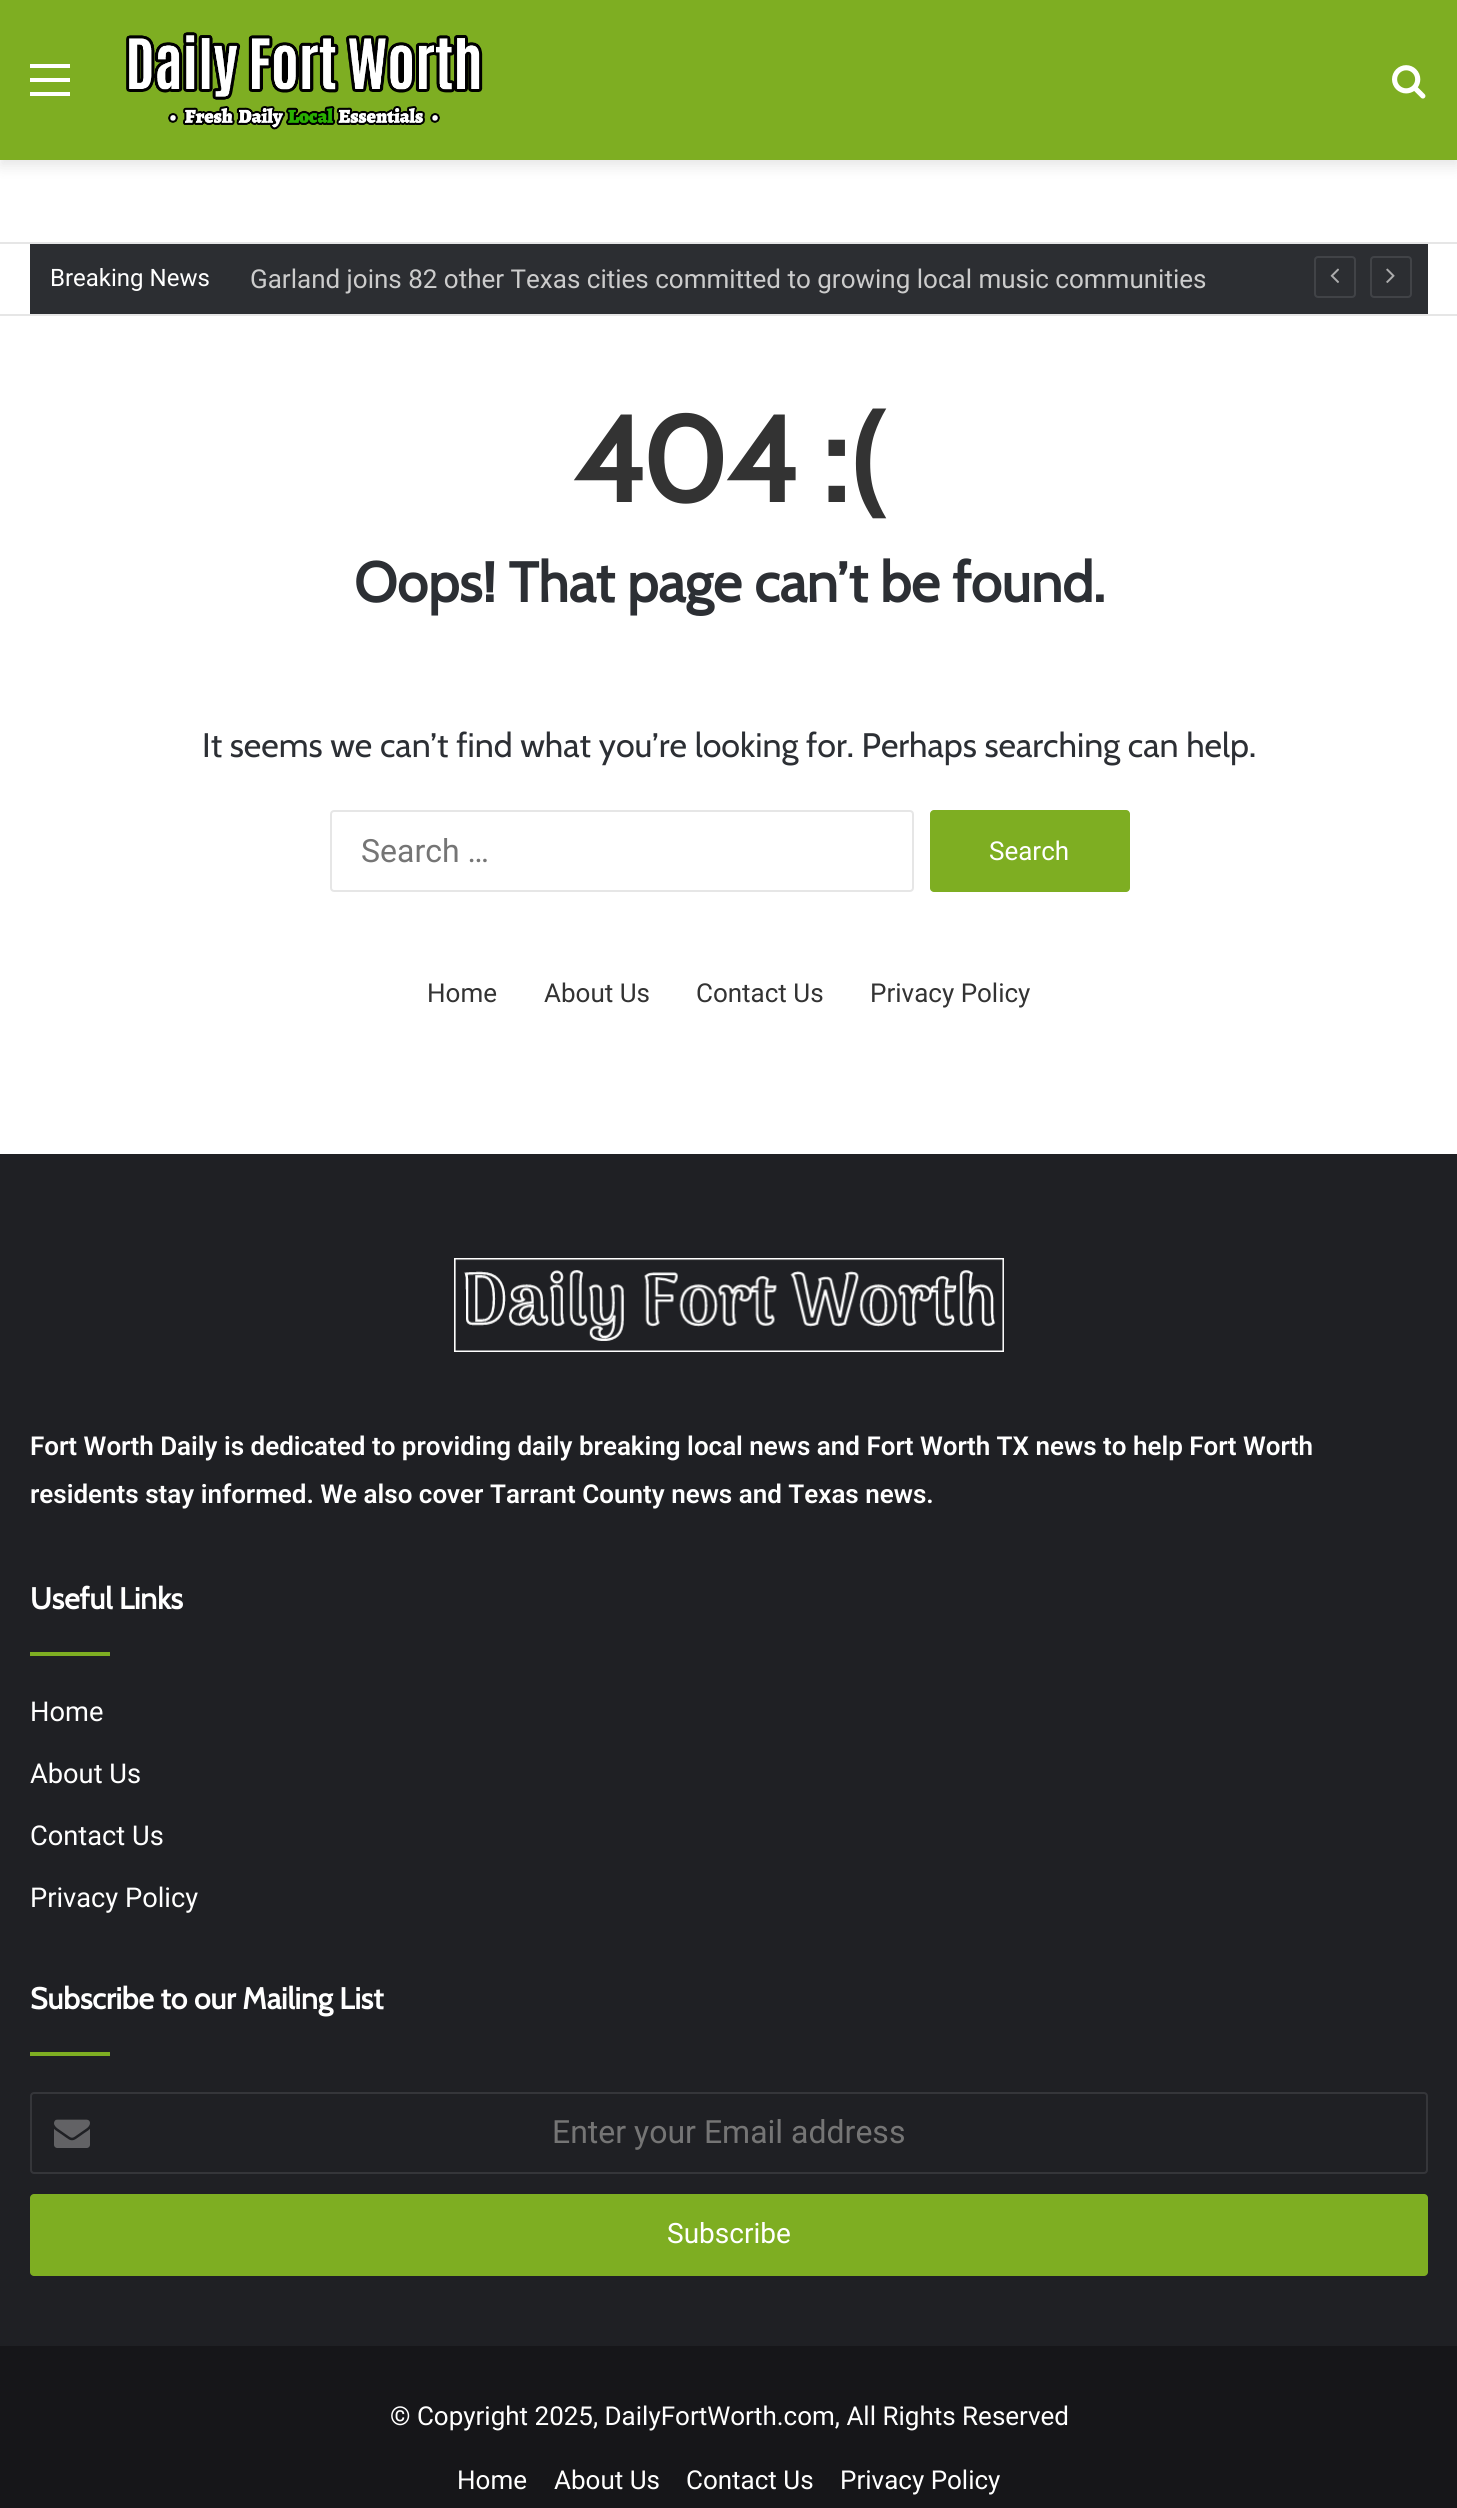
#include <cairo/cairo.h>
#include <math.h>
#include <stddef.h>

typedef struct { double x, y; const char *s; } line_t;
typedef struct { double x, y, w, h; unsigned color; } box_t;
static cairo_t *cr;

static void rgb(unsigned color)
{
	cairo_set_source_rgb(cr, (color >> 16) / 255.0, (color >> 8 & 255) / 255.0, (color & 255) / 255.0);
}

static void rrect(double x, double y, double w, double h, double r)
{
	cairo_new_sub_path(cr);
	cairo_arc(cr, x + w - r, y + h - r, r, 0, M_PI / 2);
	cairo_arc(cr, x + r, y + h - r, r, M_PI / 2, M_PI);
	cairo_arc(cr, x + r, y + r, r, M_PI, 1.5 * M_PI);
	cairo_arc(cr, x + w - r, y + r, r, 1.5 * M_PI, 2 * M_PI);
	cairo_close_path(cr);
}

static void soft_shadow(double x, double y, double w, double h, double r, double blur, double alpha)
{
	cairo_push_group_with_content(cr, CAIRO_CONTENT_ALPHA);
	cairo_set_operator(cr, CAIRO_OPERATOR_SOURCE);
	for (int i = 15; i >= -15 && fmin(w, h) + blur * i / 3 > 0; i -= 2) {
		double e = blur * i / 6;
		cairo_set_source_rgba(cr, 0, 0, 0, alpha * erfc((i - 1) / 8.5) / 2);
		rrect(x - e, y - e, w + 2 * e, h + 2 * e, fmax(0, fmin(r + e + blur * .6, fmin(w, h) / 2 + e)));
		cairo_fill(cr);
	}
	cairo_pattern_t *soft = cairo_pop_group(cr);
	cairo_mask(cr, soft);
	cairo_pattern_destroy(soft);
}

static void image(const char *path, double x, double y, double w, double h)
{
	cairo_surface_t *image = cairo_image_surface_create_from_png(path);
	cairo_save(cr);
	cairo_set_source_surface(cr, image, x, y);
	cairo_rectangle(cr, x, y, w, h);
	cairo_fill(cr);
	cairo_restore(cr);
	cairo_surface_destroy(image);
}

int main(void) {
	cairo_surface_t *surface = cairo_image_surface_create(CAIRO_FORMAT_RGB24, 1457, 2508);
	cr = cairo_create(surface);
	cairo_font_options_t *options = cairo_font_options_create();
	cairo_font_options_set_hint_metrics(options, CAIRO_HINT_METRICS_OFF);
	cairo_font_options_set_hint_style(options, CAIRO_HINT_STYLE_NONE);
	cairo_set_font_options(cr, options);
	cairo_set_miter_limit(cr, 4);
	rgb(0xffffff);
	cairo_paint(cr);
	rgb(0x000000);
	soft_shadow(0, 6, 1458, 160, 0, 7, 0.1);
	{
		static const box_t items[] = {
			{0, 0, 1457, 160, 0x7eae22},
			{30, 78, 40, 4, 0xffffff},
			{30, 64, 40, 4, 0xffffff},
			{30, 92, 40, 4, 0xffffff},
		};
		for (size_t i = 0; i < sizeof items / sizeof *items; i++) {
			rgb(items[i].color);
			cairo_rectangle(cr, items[i].x, items[i].y, items[i].w, items[i].h);
			cairo_fill(cr);
		}
	}
	image("img/1.png", 126, 32, 357, 98);
	image("img/2.png", 1392, 65, 34, 34);
	{
		static const box_t items[] = {
			{0, 242, 1457, 2, 0xe6e6e6},
			{0, 314, 1457, 2, 0xe6e6e6},
			{30, 244, 1398, 70, 0x2c2e32},
		};
		for (size_t i = 0; i < sizeof items / sizeof *items; i++) {
			rgb(items[i].color);
			cairo_rectangle(cr, items[i].x, items[i].y, items[i].w, items[i].h);
			cairo_fill(cr);
		}
	}
	rrect(1315, 257, 40, 40, 3);
	rgb(0x414347);
	cairo_stroke(cr);
	image("img/3.png", 1330, 268, 9, 15);
	rrect(1371, 257, 40, 40, 3);
	cairo_stroke(cr);
	image("img/4.png", 1386, 268, 9, 15);
	rrect(331, 811, 582, 80, 3);
	rgb(0xe6e6e6);
	cairo_stroke(cr);
	rgb(0x7eae22);
	rrect(930, 810, 200, 82, 4);
	cairo_fill(cr);
	rgb(0x1f2024);
	cairo_rectangle(cr, 0, 1154, 1457, 1192);
	cairo_fill(cr);
	image("img/5.png", 454, 1258, 550, 94);
	rgb(0x7eae22);
	cairo_rectangle(cr, 30, 1652, 80, 4);
	cairo_fill(cr);
	cairo_rectangle(cr, 30, 2052, 80, 4);
	cairo_fill(cr);
	rrect(31, 2093, 1396, 80, 3);
	rgb(0x35363a);
	cairo_stroke(cr);
	image("img/6.png", 54, 2119, 36, 29);
	rgb(0x7eae22);
	rrect(30, 2194, 1398, 82, 4);
	cairo_fill(cr);
	rgb(0x161619);
	cairo_rectangle(cr, 0, 2346, 1457, 162);
	cairo_fill(cr);
	cairo_select_font_face(cr, "Roboto", CAIRO_FONT_SLANT_NORMAL, CAIRO_FONT_WEIGHT_NORMAL);
	cairo_set_font_size(cr, 24);
	rgb(0xffffff);
	cairo_move_to(cr, 50, 286);
	cairo_show_text(cr, "Breaking News");
	cairo_set_font_size(cr, 26);
	rgb(0xcccccc);
	cairo_move_to(cr, 250, 288);
	cairo_show_text(cr, "Garland joins 82 other Texas cities committed to growing local music communities");
	cairo_select_font_face(cr, "Cabin", CAIRO_FONT_SLANT_NORMAL, CAIRO_FONT_WEIGHT_BOLD);
	cairo_set_font_size(cr, 120);
	rgb(0x333333);
	cairo_move_to(cr, 573, 502);
	cairo_show_text(cr, "404 :(");
	cairo_set_font_size(cr, 56);
	rgb(0x2c2f34);
	cairo_move_to(cr, 354, 602);
	cairo_show_text(cr, "Oops! That page can’t be found.");
	cairo_select_font_face(cr, "Cabin", CAIRO_FONT_SLANT_NORMAL, CAIRO_FONT_WEIGHT_NORMAL);
	cairo_set_font_size(cr, 34);
	cairo_move_to(cr, 202, 757);
	cairo_show_text(cr, "It seems we can’t find what you’re looking for. Perhaps searching can help.");
	cairo_select_font_face(cr, "Roboto", CAIRO_FONT_SLANT_NORMAL, CAIRO_FONT_WEIGHT_NORMAL);
	cairo_set_font_size(cr, 32);
	rgb(0x757575);
	cairo_move_to(cr, 361, 862);
	cairo_show_text(cr, "Search …");
	cairo_set_font_size(cr, 26);
	rgb(0xffffff);
	cairo_move_to(cr, 989, 860);
	cairo_show_text(cr, "Search");
	rgb(0x333333);
	{
		static const line_t items[] = {
			{427, 1002, "Home"},
			{544, 1002, "About Us"},
			{696, 1002, "Contact Us"},
			{870, 1002, "Privacy Policy"},
		};
		for (size_t i = 0; i < sizeof items / sizeof *items; i++) {
			cairo_move_to(cr, items[i].x, items[i].y);
			cairo_show_text(cr, items[i].s);
		}
	}
	cairo_select_font_face(cr, "Roboto SemiBold", CAIRO_FONT_SLANT_NORMAL, CAIRO_FONT_WEIGHT_NORMAL);
	rgb(0xffffff);
	cairo_move_to(cr, 30, 1455);
	cairo_show_text(cr, "Fort Worth Daily is dedicated to providing daily breaking local news and Fort Worth TX news to help Fort Worth");
	cairo_move_to(cr, 30, 1503);
	cairo_show_text(cr, "residents stay informed. We also cover Tarrant County news and Texas news.");
	cairo_select_font_face(cr, "Cabin", CAIRO_FONT_SLANT_NORMAL, CAIRO_FONT_WEIGHT_BOLD);
	cairo_set_font_size(cr, 30);
	cairo_move_to(cr, 30, 1609);
	cairo_show_text(cr, "Useful Links");
	cairo_select_font_face(cr, "Roboto", CAIRO_FONT_SLANT_NORMAL, CAIRO_FONT_WEIGHT_NORMAL);
	cairo_set_font_size(cr, 27.25);
	{
		static const line_t items[] = {
			{30, 1721, "Home"},
			{30, 1783, "About Us"},
			{30, 1845, "Contact Us"},
			{30, 1907, "Privacy Policy"},
		};
		for (size_t i = 0; i < sizeof items / sizeof *items; i++) {
			cairo_move_to(cr, items[i].x, items[i].y);
			cairo_show_text(cr, items[i].s);
		}
	}
	cairo_select_font_face(cr, "Cabin", CAIRO_FONT_SLANT_NORMAL, CAIRO_FONT_WEIGHT_BOLD);
	cairo_set_font_size(cr, 30);
	cairo_move_to(cr, 30, 2009);
	cairo_show_text(cr, "Subscribe to our Mailing List");
	cairo_select_font_face(cr, "Roboto", CAIRO_FONT_SLANT_NORMAL, CAIRO_FONT_WEIGHT_NORMAL);
	cairo_set_font_size(cr, 32);
	rgb(0x757575);
	cairo_move_to(cr, 552, 2143);
	cairo_show_text(cr, "Enter your Email address");
	cairo_set_font_size(cr, 28);
	rgb(0xffffff);
	cairo_move_to(cr, 667, 2243);
	cairo_show_text(cr, "Subscribe");
	cairo_set_font_size(cr, 26);
	{
		static const line_t items[] = {
			{390, 2425, "© Copyright 2025, DailyFortWorth.com, All Rights Reserved"},
			{457, 2489, "Home"},
			{554, 2489, "About Us"},
			{686, 2489, "Contact Us"},
			{840, 2489, "Privacy Policy"},
		};
		for (size_t i = 0; i < sizeof items / sizeof *items; i++) {
			cairo_move_to(cr, items[i].x, items[i].y);
			cairo_show_text(cr, items[i].s);
		}
	}
	cairo_surface_write_to_png(surface, "page.png");
	cairo_font_options_destroy(options);
	cairo_destroy(cr);
	cairo_surface_destroy(surface);
	return 0;
}
